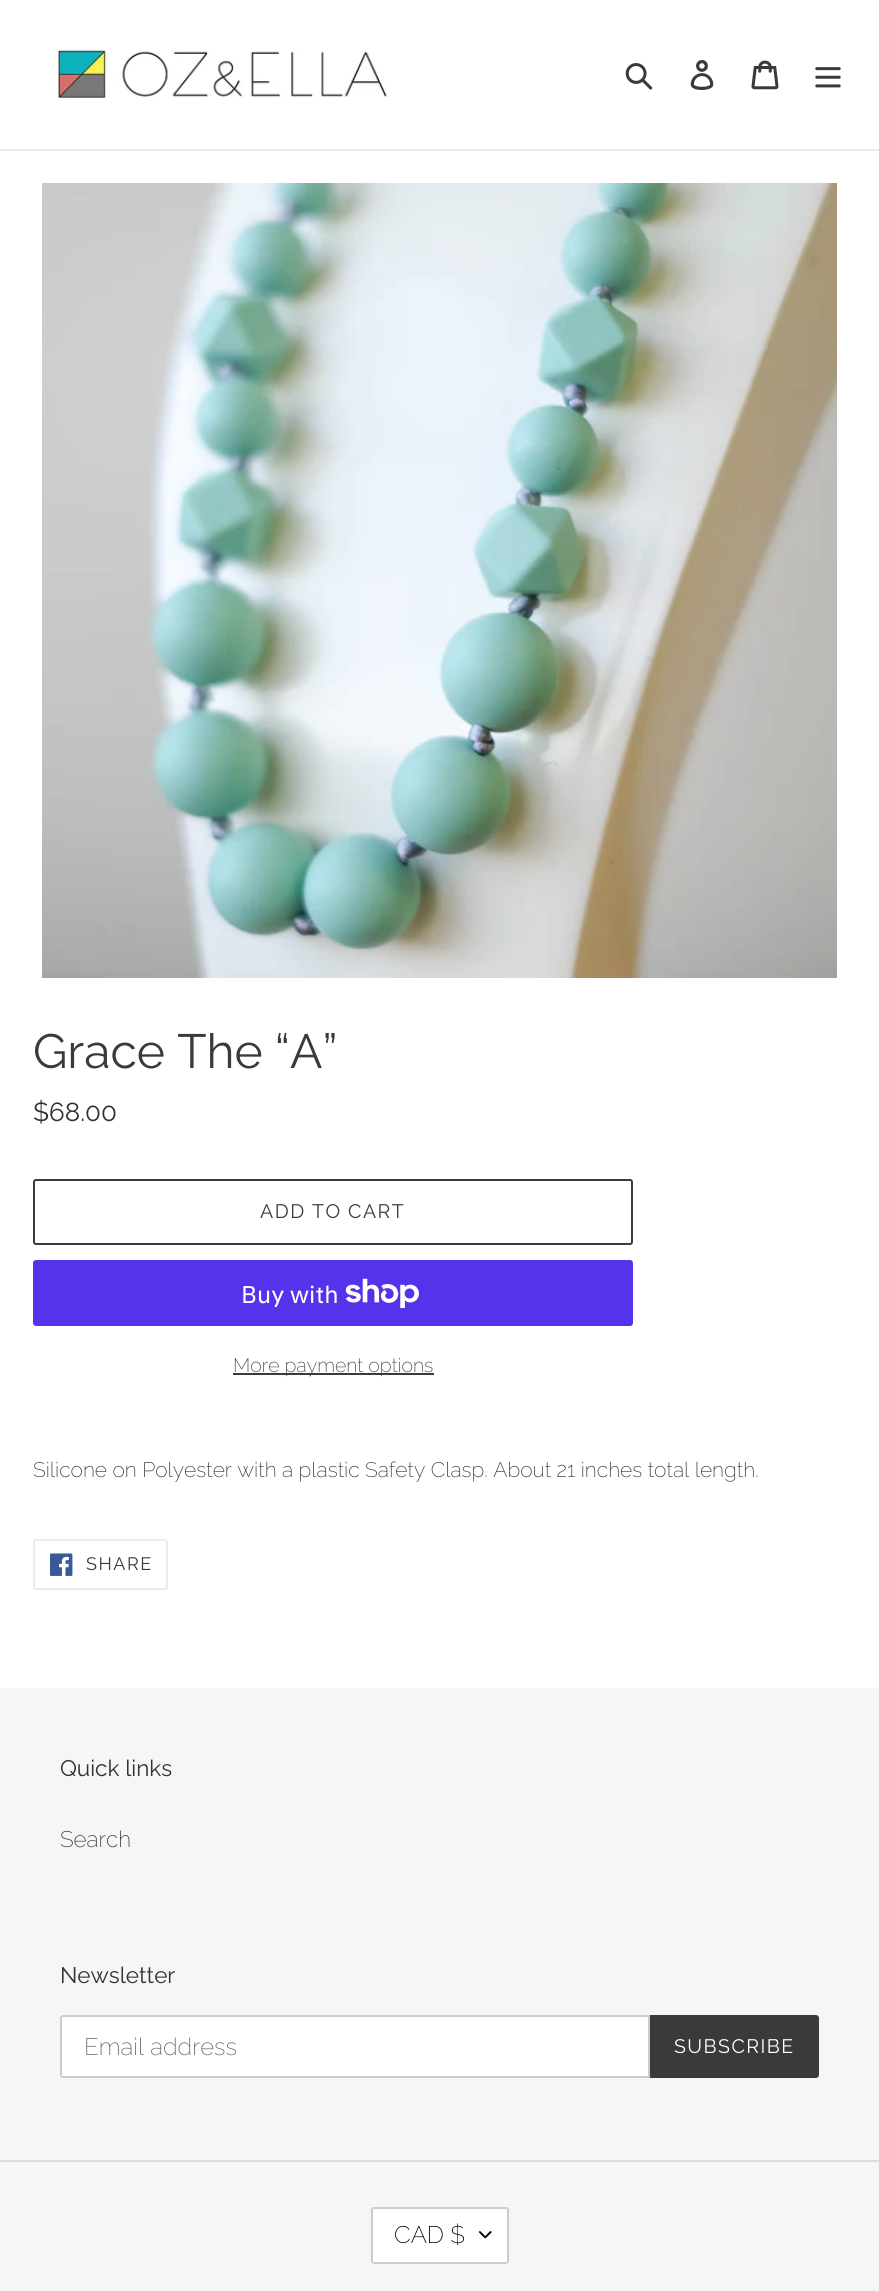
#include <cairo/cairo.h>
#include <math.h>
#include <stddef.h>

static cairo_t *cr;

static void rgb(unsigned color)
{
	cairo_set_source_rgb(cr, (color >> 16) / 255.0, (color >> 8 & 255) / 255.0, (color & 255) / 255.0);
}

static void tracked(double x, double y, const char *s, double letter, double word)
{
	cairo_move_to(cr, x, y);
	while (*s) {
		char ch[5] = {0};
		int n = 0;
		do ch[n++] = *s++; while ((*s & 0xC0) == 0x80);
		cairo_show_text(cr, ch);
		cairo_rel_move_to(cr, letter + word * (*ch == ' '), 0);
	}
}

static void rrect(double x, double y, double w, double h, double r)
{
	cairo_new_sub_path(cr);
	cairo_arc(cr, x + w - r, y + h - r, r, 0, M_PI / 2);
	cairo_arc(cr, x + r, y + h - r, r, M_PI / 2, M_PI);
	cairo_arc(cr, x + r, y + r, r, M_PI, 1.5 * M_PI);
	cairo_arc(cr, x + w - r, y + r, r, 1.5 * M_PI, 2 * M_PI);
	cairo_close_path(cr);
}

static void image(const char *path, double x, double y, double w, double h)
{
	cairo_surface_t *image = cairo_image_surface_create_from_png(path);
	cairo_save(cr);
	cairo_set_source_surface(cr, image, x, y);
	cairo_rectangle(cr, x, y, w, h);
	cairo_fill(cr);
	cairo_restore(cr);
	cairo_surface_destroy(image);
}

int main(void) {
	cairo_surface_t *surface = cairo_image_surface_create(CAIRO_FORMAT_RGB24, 879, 2291);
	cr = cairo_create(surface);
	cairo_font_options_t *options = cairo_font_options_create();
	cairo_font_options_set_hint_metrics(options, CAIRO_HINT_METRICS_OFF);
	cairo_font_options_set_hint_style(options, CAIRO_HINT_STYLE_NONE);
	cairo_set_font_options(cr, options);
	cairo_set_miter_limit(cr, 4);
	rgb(0xffffff);
	cairo_paint(cr);
	rgb(0xebebeb);
	cairo_rectangle(cr, 0, 149, 879, 2);
	cairo_fill(cr);
	image("img/1.png", 58, 48, 330, 50);
	image("img/2.png", 625, 63, 28, 27);
	image("img/3.png", 690, 60, 24, 30);
	image("img/4.png", 751, 60, 28, 30);
	image("img/5.png", 815, 67, 26, 21);
	image("img/6.png", 42, 183, 795, 795);
	rrect(34, 1180, 598, 64, 2);
	rgb(0x3a3a3a);
	cairo_stroke(cr);
	rgb(0x5433eb);
	rrect(33, 1260, 600, 66, 3);
	cairo_fill(cr);
	image("img/7.png", 345, 1278, 74, 30);
	rgb(0x3a3a3a);
	cairo_rectangle(cr, 233, 1373, 201, 2);
	cairo_fill(cr);
	rrect(34, 1540, 133, 49, 2);
	rgb(0xebebeb);
	cairo_stroke(cr);
	image("img/8.png", 50, 1553, 23, 23);
	rgb(0xf6f6f6);
	cairo_rectangle(cr, 0, 1688, 879, 603);
	cairo_fill(cr);
	rgb(0xffffff);
	cairo_new_path(cr);
	cairo_move_to(cr, 63, 2016);
	cairo_line_to(cr, 649, 2016);
	cairo_line_to(cr, 649, 2077);
	cairo_line_to(cr, 63, 2077);
	cairo_curve_to(cr, 62, 2077, 61, 2076, 61, 2075);
	cairo_line_to(cr, 61, 2018);
	cairo_curve_to(cr, 61, 2017, 62, 2016, 63, 2016);
	cairo_close_path(cr);
	cairo_fill_preserve(cr);
	rgb(0xcccccc);
	cairo_stroke(cr);
	rgb(0x3a3a3a);
	cairo_new_path(cr);
	cairo_move_to(cr, 650, 2015);
	cairo_line_to(cr, 816, 2015);
	cairo_curve_to(cr, 817.5, 2015, 819, 2016.5, 819, 2018);
	cairo_line_to(cr, 819, 2075);
	cairo_curve_to(cr, 819, 2076.5, 817.5, 2078, 816, 2078);
	cairo_line_to(cr, 650, 2078);
	cairo_close_path(cr);
	cairo_fill(cr);
	rgb(0xdddddd);
	cairo_rectangle(cr, 0, 2160, 879, 2);
	cairo_fill(cr);
	rgb(0xffffff);
	rrect(371, 2207, 138, 57, 3);
	cairo_fill(cr);
	image("img/9.png", 479, 2231, 13, 8);
	rrect(372, 2208, 136, 55, 2);
	rgb(0xcccccc);
	cairo_stroke(cr);
	cairo_select_font_face(cr, "Raleway", CAIRO_FONT_SLANT_NORMAL, CAIRO_FONT_WEIGHT_NORMAL);
	cairo_set_font_size(cr, 48);
	rgb(0x3a3a3a);
	cairo_move_to(cr, 33, 1068);
	cairo_show_text(cr, "Grace The “A”");
	cairo_set_font_size(cr, 26);
	rgb(0x333232);
	cairo_move_to(cr, 33, 1121);
	cairo_show_text(cr, "$68.00");
	cairo_set_font_size(cr, 19.5);
	rgb(0x3a3a3a);
	tracked(260, 1218, "ADD TO CART", 1.5, 0);
	cairo_select_font_face(cr, "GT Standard", CAIRO_FONT_SLANT_NORMAL, CAIRO_FONT_WEIGHT_NORMAL);
	cairo_set_font_size(cr, 24);
	rgb(0xffffff);
	cairo_move_to(cr, 241, 1303);
	cairo_show_text(cr, "Buy with");
	cairo_select_font_face(cr, "Raleway ExtraLight", CAIRO_FONT_SLANT_NORMAL, CAIRO_FONT_WEIGHT_NORMAL);
	cairo_set_font_size(cr, 19.5);
	rgb(0x3a3a3a);
	cairo_move_to(cr, 233, 1372);
	cairo_show_text(cr, "More payment options");
	cairo_set_font_size(cr, 21);
	rgb(0x333232);
	cairo_move_to(cr, 33, 1477);
	cairo_show_text(cr, "Silicone on Polyester with a plastic Safety Clasp. About 21 inches total length.");
	cairo_select_font_face(cr, "Raleway", CAIRO_FONT_SLANT_NORMAL, CAIRO_FONT_WEIGHT_NORMAL);
	cairo_set_font_size(cr, 18);
	rgb(0x3a3a3a);
	tracked(86, 1570, "SHARE", 1.5, 0);
	cairo_set_font_size(cr, 22.5);
	rgb(0x333232);
	cairo_move_to(cr, 60, 1776);
	cairo_show_text(cr, "Quick links");
	cairo_select_font_face(cr, "Raleway ExtraLight", CAIRO_FONT_SLANT_NORMAL, CAIRO_FONT_WEIGHT_NORMAL);
	cairo_move_to(cr, 60, 1847);
	cairo_show_text(cr, "Search");
	cairo_select_font_face(cr, "Raleway", CAIRO_FONT_SLANT_NORMAL, CAIRO_FONT_WEIGHT_NORMAL);
	cairo_move_to(cr, 60, 1983);
	cairo_show_text(cr, "Newsletter");
	cairo_select_font_face(cr, "Raleway ExtraLight", CAIRO_FONT_SLANT_NORMAL, CAIRO_FONT_WEIGHT_NORMAL);
	cairo_set_font_size(cr, 24);
	rgb(0x666666);
	cairo_move_to(cr, 84, 2055);
	cairo_show_text(cr, "Email address");
	cairo_select_font_face(cr, "Raleway", CAIRO_FONT_SLANT_NORMAL, CAIRO_FONT_WEIGHT_NORMAL);
	cairo_set_font_size(cr, 19.5);
	rgb(0xffffff);
	tracked(674, 2053, "SUBSCRIBE", 1.5, 0);
	cairo_select_font_face(cr, "Raleway ExtraLight", CAIRO_FONT_SLANT_NORMAL, CAIRO_FONT_WEIGHT_NORMAL);
	cairo_set_font_size(cr, 24);
	rgb(0x000000);
	cairo_move_to(cr, 394, 2243);
	cairo_show_text(cr, "CAD $");
	cairo_surface_write_to_png(surface, "page.png");
	cairo_font_options_destroy(options);
	cairo_destroy(cr);
	cairo_surface_destroy(surface);
	return 0;
}
